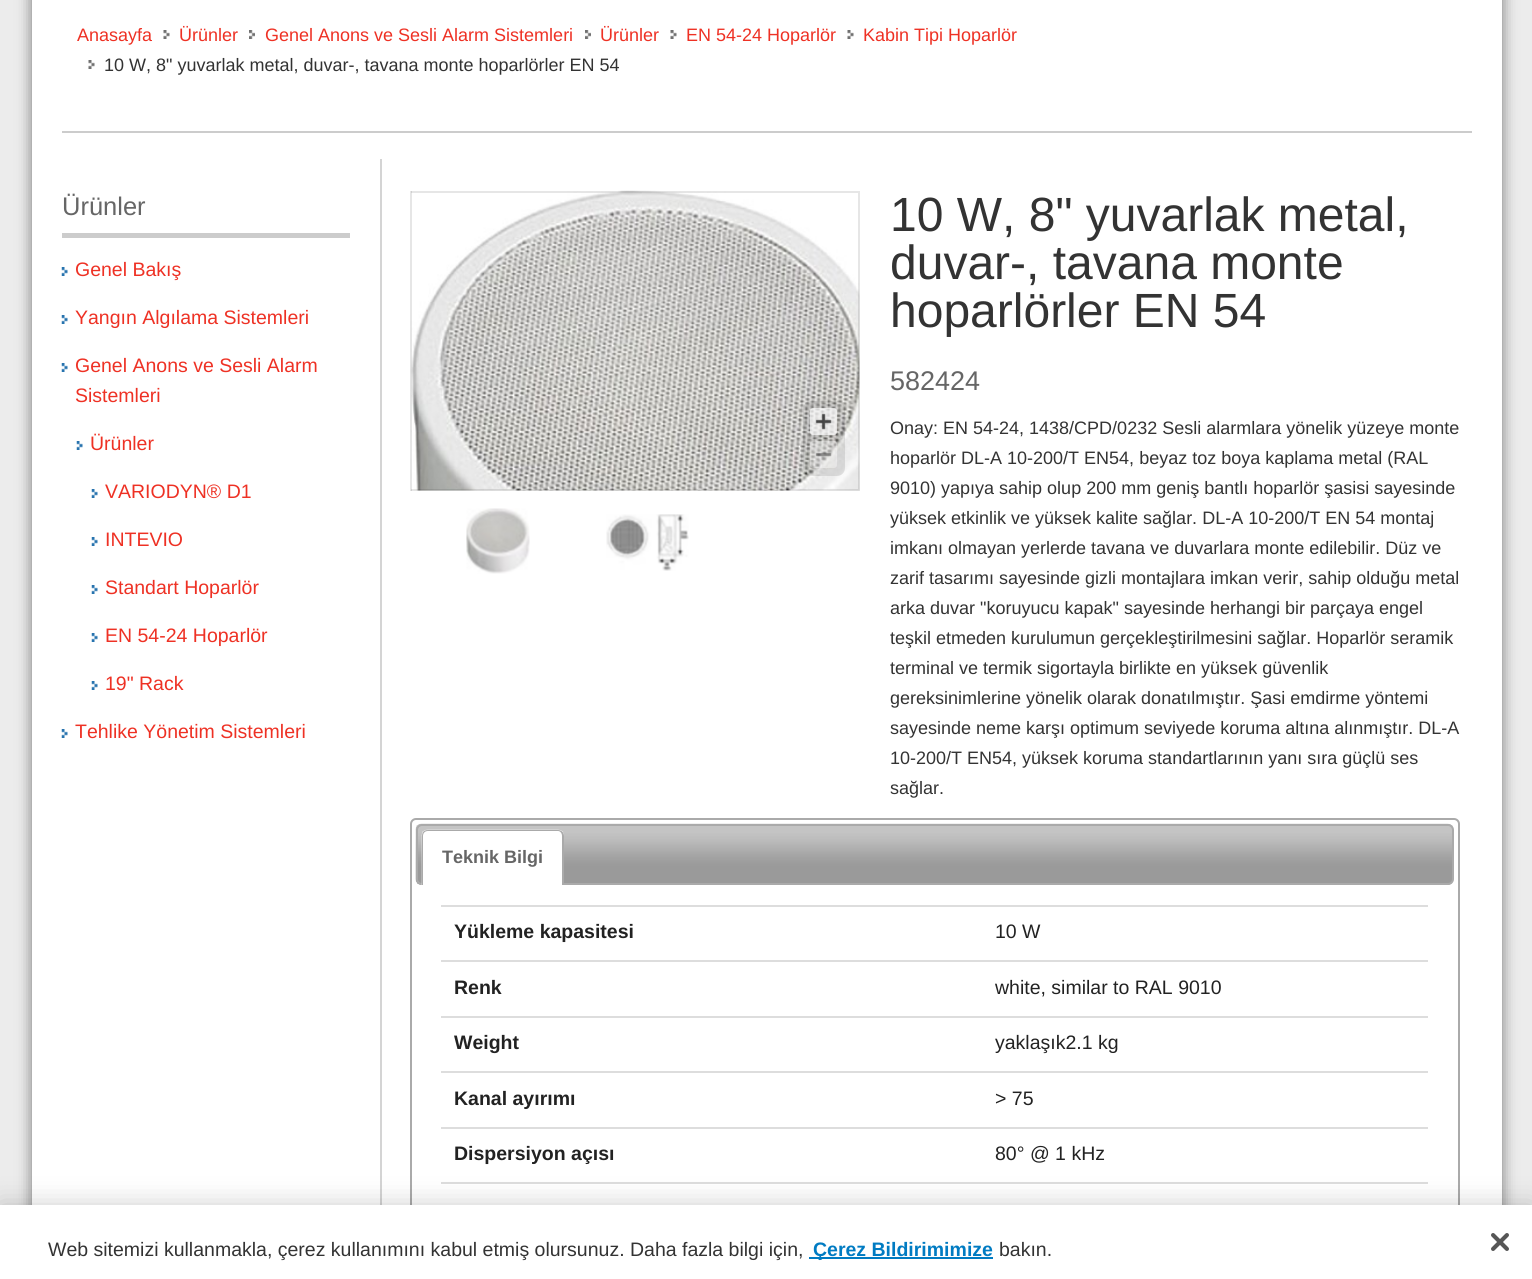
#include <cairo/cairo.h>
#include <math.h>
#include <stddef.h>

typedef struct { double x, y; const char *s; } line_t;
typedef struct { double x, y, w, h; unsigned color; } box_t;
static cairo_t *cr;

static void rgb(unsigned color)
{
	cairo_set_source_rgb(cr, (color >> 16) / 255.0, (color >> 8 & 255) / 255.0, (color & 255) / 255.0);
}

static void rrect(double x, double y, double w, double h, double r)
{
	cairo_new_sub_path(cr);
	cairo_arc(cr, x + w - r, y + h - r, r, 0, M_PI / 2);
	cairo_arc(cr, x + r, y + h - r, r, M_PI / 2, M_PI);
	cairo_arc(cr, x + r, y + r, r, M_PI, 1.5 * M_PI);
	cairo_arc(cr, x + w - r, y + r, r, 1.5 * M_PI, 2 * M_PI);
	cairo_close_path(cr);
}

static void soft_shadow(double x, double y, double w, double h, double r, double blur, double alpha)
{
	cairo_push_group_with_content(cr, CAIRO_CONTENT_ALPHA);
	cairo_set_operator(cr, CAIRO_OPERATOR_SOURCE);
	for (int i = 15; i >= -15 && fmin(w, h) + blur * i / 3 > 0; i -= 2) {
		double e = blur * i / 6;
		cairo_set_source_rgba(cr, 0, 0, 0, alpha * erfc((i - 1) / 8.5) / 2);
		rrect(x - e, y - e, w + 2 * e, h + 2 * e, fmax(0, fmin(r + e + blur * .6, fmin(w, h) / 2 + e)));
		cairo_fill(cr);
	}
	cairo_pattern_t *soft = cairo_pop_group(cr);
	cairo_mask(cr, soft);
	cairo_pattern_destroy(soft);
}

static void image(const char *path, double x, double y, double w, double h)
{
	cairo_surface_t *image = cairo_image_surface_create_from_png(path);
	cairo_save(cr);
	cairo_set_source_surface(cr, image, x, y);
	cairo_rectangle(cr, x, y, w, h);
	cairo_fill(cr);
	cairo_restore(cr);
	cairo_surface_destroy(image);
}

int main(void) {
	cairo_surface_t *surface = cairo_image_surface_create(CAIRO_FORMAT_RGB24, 1532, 1279);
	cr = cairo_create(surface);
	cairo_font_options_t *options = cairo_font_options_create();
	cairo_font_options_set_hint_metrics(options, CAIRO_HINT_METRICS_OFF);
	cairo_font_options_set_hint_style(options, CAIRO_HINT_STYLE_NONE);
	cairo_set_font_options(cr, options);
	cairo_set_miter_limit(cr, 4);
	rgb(0xececec);
	cairo_paint(cr);
	rgb(0x000000);
	soft_shadow(32, -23, 1470, 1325, 0, 7.5, 0.5);
	rgb(0xffffff);
	cairo_rectangle(cr, 32, 0, 1470, 1205);
	cairo_fill(cr);
	rgb(0xcccccc);
	cairo_rectangle(cr, 62, 131, 1410, 2);
	cairo_fill(cr);
	image("img/1.png", 163, 30, 7, 9);
	image("img/2.png", 249, 30, 6, 9);
	image("img/2.png", 585, 30, 6, 9);
	image("img/3.png", 670, 30, 7, 9);
	image("img/1.png", 847, 30, 7, 9);
	image("img/1.png", 88, 60, 7, 9);
	cairo_rectangle(cr, 62, 233, 288, 5);
	cairo_fill(cr);
	image("img/4.png", 61, 267, 7, 9);
	image("img/4.png", 61, 315, 7, 9);
	image("img/4.png", 61, 363, 7, 9);
	image("img/4.png", 76, 441, 7, 9);
	image("img/4.png", 91, 489, 7, 9);
	image("img/4.png", 91, 537, 7, 9);
	image("img/4.png", 91, 585, 7, 9);
	image("img/4.png", 91, 633, 7, 9);
	image("img/4.png", 91, 681, 7, 9);
	image("img/4.png", 61, 729, 7, 9);
	rgb(0xd4d4d4);
	cairo_rectangle(cr, 380, 159, 2, 1046);
	cairo_fill(cr);
	image("img/5.png", 410, 190, 450, 301);
	cairo_set_source_rgba(cr, 0, 0, 0, 0.1);
	cairo_rectangle(cr, 410, 191, 2, 300);
	cairo_fill(cr);
	cairo_rectangle(cr, 411, 191, 447, 2);
	cairo_fill(cr);
	cairo_rectangle(cr, 858, 191, 2, 300);
	cairo_fill(cr);
	rrect(803, 401, 42, 75, 8);
	cairo_fill(cr);
	cairo_set_source_rgba(cr, 1, 1, 1, 0.7);
	rrect(810, 408, 27, 27, 3);
	cairo_fill(cr);
	image("img/6.png", 815, 413, 17, 17);
	cairo_set_source_rgba(cr, 1, 1, 1, 0.4);
	rrect(810, 441, 27, 27, 3);
	cairo_fill(cr);
	image("img/7.png", 815, 452, 17, 5);
	cairo_set_source_rgba(cr, 0, 0, 0, 0.1);
	cairo_rectangle(cr, 411, 489, 447, 2);
	cairo_fill(cr);
	image("img/8.png", 466, 508, 64, 66);
	image("img/9.png", 606, 514, 83, 57);
	rrect(411, 819, 1048, 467, 5);
	rgb(0xaaaaaa);
	cairo_stroke(cr);
	image("img/10.png", 415, 823, 1039, 62);
	rrect(417, 825, 1036, 59, 5);
	cairo_stroke(cr);
	image("img/11.png", 421, 829, 143, 56);
	cairo_set_fill_rule(cr, CAIRO_FILL_RULE_EVEN_ODD);
	cairo_new_path(cr);
	cairo_move_to(cr, 428, 830);
	cairo_line_to(cr, 558, 830);
	cairo_curve_to(cr, 561, 830, 564, 832, 564, 836);
	cairo_line_to(cr, 564, 885);
	cairo_line_to(cr, 422, 885);
	cairo_line_to(cr, 422, 836);
	cairo_curve_to(cr, 422, 832, 424, 830, 428, 830);
	cairo_close_path(cr);
	cairo_move_to(cr, 428, 831);
	cairo_line_to(cr, 558, 831);
	cairo_curve_to(cr, 560, 831, 562, 833, 562, 836);
	cairo_line_to(cr, 562, 885);
	cairo_line_to(cr, 423, 885);
	cairo_line_to(cr, 423, 836);
	cairo_curve_to(cr, 423, 833, 425, 831, 428, 831);
	cairo_close_path(cr);
	cairo_fill(cr);
	{
		static const box_t items[] = {
			{441, 905, 987, 2, 0xdddddd},
			{441, 960, 987, 2, 0xdddddd},
			{441, 1016, 987, 2, 0xdddddd},
			{441, 1071, 987, 2, 0xdddddd},
			{441, 1127, 987, 2, 0xdddddd},
			{441, 1182, 987, 2, 0xdddddd},
		};
		for (size_t i = 0; i < sizeof items / sizeof *items; i++) {
			rgb(items[i].color);
			cairo_rectangle(cr, items[i].x, items[i].y, items[i].w, items[i].h);
			cairo_fill(cr);
		}
	}
	rgb(0x000000);
	soft_shadow(0, 1205, 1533, 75, 0, 13.5, 0.2);
	rgb(0xffffff);
	cairo_rectangle(cr, 0, 1205, 1532, 74);
	cairo_fill(cr);
	rgb(0x007bc2);
	cairo_rectangle(cr, 809, 1257, 184, 2);
	cairo_fill(cr);
	image("img/12.png", 1491, 1233, 18, 18);
	cairo_select_font_face(cr, "Liberation Sans", CAIRO_FONT_SLANT_NORMAL, CAIRO_FONT_WEIGHT_NORMAL);
	cairo_set_font_size(cr, 18);
	rgb(0xee3124);
	{
		static const line_t items[] = {
			{77, 41, "Anasayfa"},
			{179, 41, "Ürünler"},
			{265, 41, "Genel Anons ve Sesli Alarm Sistemleri"},
			{600, 41, "Ürünler"},
			{686, 41, "EN 54-24 Hoparlör"},
			{863, 41, "Kabin Tipi Hoparlör"},
		};
		for (size_t i = 0; i < sizeof items / sizeof *items; i++) {
			cairo_move_to(cr, items[i].x, items[i].y);
			cairo_show_text(cr, items[i].s);
		}
	}
	rgb(0x333333);
	cairo_move_to(cr, 104, 71);
	cairo_show_text(cr, "10 W, 8\" yuvarlak metal, duvar-, tavana monte hoparlörler EN 54");
	cairo_set_font_size(cr, 25.5);
	rgb(0x666666);
	cairo_move_to(cr, 62, 215);
	cairo_show_text(cr, "Ürünler");
	cairo_set_font_size(cr, 19.5);
	rgb(0xee3124);
	{
		static const line_t items[] = {
			{75, 276, "Genel Bakış"},
			{75, 324, "Yangın Algılama Sistemleri"},
			{75, 372, "Genel Anons ve Sesli Alarm"},
			{75, 402, "Sistemleri"},
			{90, 450, "Ürünler"},
			{105, 498, "VARIODYN® D1"},
			{105, 546, "INTEVIO"},
			{105, 594, "Standart Hoparlör"},
			{105, 642, "EN 54-24 Hoparlör"},
			{105, 690, "19\" Rack"},
			{75, 738, "Tehlike Yönetim Sistemleri"},
		};
		for (size_t i = 0; i < sizeof items / sizeof *items; i++) {
			cairo_move_to(cr, items[i].x, items[i].y);
			cairo_show_text(cr, items[i].s);
		}
	}
	cairo_set_font_size(cr, 48);
	rgb(0x333333);
	{
		static const line_t items[] = {
			{890, 231, "10 W, 8\" yuvarlak metal,"},
			{890, 279, "duvar-, tavana monte"},
			{890, 327, "hoparlörler EN 54"},
		};
		for (size_t i = 0; i < sizeof items / sizeof *items; i++) {
			cairo_move_to(cr, items[i].x, items[i].y);
			cairo_show_text(cr, items[i].s);
		}
	}
	cairo_set_font_size(cr, 27);
	rgb(0x666666);
	cairo_move_to(cr, 890, 390);
	cairo_show_text(cr, "582424");
	cairo_set_font_size(cr, 18);
	rgb(0x333333);
	{
		static const line_t items[] = {
			{890, 434, "Onay: EN 54-24, 1438/CPD/0232 Sesli alarmlara yönelik yüzeye monte"},
			{890, 464, "hoparlör DL-A 10-200/T EN54, beyaz toz boya kaplama metal (RAL"},
			{890, 494, "9010) yapıya sahip olup 200 mm geniş bantlı hoparlör şasisi sayesinde"},
			{890, 524, "yüksek etkinlik ve yüksek kalite sağlar. DL-A 10-200/T EN 54 montaj"},
			{890, 554, "imkanı olmayan yerlerde tavana ve duvarlara monte edilebilir. Düz ve"},
			{890, 584, "zarif tasarımı sayesinde gizli montajlara imkan verir, sahip olduğu metal"},
			{890, 614, "arka duvar \"koruyucu kapak\" sayesinde herhangi bir parçaya engel"},
			{890, 644, "teşkil etmeden kurulumun gerçekleştirilmesini sağlar. Hoparlör seramik"},
			{890, 674, "terminal ve termik sigortayla birlikte en yüksek güvenlik"},
			{890, 704, "gereksinimlerine yönelik olarak donatılmıştır. Şasi emdirme yöntemi"},
			{890, 734, "sayesinde neme karşı optimum seviyede koruma altına alınmıştır. DL-A"},
			{890, 764, "10-200/T EN54, yüksek koruma standartlarının yanı sıra güçlü ses"},
			{890, 794, "sağlar."},
		};
		for (size_t i = 0; i < sizeof items / sizeof *items; i++) {
			cairo_move_to(cr, items[i].x, items[i].y);
			cairo_show_text(cr, items[i].s);
		}
	}
	cairo_select_font_face(cr, "Liberation Sans", CAIRO_FONT_SLANT_NORMAL, CAIRO_FONT_WEIGHT_BOLD);
	rgb(0x666666);
	cairo_move_to(cr, 442, 863);
	cairo_show_text(cr, "Teknik Bilgi");
	cairo_set_font_size(cr, 19.5);
	rgb(0x222222);
	cairo_move_to(cr, 454, 938);
	cairo_show_text(cr, "Yükleme kapasitesi");
	cairo_select_font_face(cr, "Liberation Sans", CAIRO_FONT_SLANT_NORMAL, CAIRO_FONT_WEIGHT_NORMAL);
	cairo_move_to(cr, 995, 938);
	cairo_show_text(cr, "10 W");
	cairo_select_font_face(cr, "Liberation Sans", CAIRO_FONT_SLANT_NORMAL, CAIRO_FONT_WEIGHT_BOLD);
	cairo_move_to(cr, 454, 994);
	cairo_show_text(cr, "Renk");
	cairo_select_font_face(cr, "Liberation Sans", CAIRO_FONT_SLANT_NORMAL, CAIRO_FONT_WEIGHT_NORMAL);
	cairo_move_to(cr, 995, 994);
	cairo_show_text(cr, "white, similar to RAL 9010");
	cairo_select_font_face(cr, "Liberation Sans", CAIRO_FONT_SLANT_NORMAL, CAIRO_FONT_WEIGHT_BOLD);
	cairo_move_to(cr, 454, 1049);
	cairo_show_text(cr, "Weight");
	cairo_select_font_face(cr, "Liberation Sans", CAIRO_FONT_SLANT_NORMAL, CAIRO_FONT_WEIGHT_NORMAL);
	cairo_move_to(cr, 995, 1049);
	cairo_show_text(cr, "yaklaşık2.1 kg");
	cairo_select_font_face(cr, "Liberation Sans", CAIRO_FONT_SLANT_NORMAL, CAIRO_FONT_WEIGHT_BOLD);
	cairo_move_to(cr, 454, 1105);
	cairo_show_text(cr, "Kanal ayırımı");
	cairo_select_font_face(cr, "Liberation Sans", CAIRO_FONT_SLANT_NORMAL, CAIRO_FONT_WEIGHT_NORMAL);
	cairo_move_to(cr, 995, 1105);
	cairo_show_text(cr, "> 75");
	cairo_select_font_face(cr, "Liberation Sans", CAIRO_FONT_SLANT_NORMAL, CAIRO_FONT_WEIGHT_BOLD);
	cairo_move_to(cr, 454, 1160);
	cairo_show_text(cr, "Dispersiyon açısı");
	cairo_select_font_face(cr, "Liberation Sans", CAIRO_FONT_SLANT_NORMAL, CAIRO_FONT_WEIGHT_NORMAL);
	cairo_move_to(cr, 995, 1160);
	cairo_show_text(cr, "80° @ 1 kHz");
	rgb(0x333333);
	cairo_move_to(cr, 48, 1256);
	cairo_show_text(cr, "Web sitemizi kullanmakla, çerez kullanımını kabul etmiş olursunuz. Daha fazla bilgi için,");
	cairo_select_font_face(cr, "Liberation Sans", CAIRO_FONT_SLANT_NORMAL, CAIRO_FONT_WEIGHT_BOLD);
	rgb(0x007bc2);
	cairo_move_to(cr, 813, 1256);
	cairo_show_text(cr, "Çerez Bildirimimize");
	cairo_select_font_face(cr, "Liberation Sans", CAIRO_FONT_SLANT_NORMAL, CAIRO_FONT_WEIGHT_NORMAL);
	rgb(0x333333);
	cairo_move_to(cr, 999, 1256);
	cairo_show_text(cr, "bakın.");
	cairo_surface_write_to_png(surface, "page.png");
	cairo_font_options_destroy(options);
	cairo_destroy(cr);
	cairo_surface_destroy(surface);
	return 0;
}
